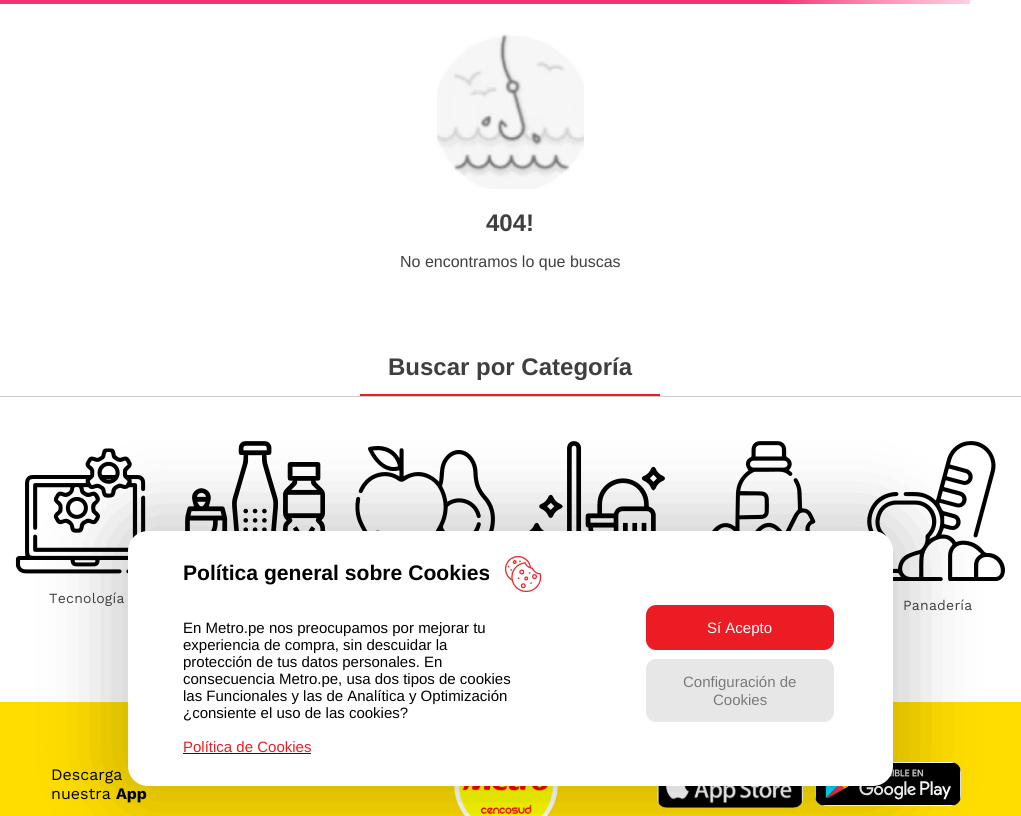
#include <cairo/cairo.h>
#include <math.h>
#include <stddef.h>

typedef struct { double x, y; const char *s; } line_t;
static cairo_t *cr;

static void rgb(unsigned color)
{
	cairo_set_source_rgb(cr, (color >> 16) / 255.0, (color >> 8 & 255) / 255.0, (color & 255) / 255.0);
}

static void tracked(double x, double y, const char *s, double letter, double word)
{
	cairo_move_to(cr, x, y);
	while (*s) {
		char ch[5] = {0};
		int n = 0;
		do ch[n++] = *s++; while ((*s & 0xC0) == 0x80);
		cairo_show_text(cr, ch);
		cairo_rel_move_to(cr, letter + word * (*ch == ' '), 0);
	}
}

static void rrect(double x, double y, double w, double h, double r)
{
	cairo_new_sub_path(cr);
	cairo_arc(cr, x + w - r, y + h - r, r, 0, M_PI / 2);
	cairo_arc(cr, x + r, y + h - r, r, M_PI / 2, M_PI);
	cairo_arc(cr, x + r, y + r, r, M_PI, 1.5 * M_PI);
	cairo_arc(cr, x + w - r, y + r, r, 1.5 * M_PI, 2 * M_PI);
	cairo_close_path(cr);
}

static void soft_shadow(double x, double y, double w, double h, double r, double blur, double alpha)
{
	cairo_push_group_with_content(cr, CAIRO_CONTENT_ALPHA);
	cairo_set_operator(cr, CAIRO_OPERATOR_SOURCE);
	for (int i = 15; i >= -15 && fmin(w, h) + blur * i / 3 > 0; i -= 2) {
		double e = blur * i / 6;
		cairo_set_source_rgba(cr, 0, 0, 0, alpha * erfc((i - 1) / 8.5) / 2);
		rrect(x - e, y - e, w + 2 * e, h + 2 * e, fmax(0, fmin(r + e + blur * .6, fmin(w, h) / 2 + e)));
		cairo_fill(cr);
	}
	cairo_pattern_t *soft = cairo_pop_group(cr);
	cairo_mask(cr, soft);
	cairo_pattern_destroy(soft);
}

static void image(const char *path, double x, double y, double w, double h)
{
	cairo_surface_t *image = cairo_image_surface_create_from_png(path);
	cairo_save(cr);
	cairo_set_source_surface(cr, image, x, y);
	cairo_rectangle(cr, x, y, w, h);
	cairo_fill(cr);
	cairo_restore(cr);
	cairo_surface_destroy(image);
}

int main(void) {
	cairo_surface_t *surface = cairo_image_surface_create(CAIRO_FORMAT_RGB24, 1021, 816);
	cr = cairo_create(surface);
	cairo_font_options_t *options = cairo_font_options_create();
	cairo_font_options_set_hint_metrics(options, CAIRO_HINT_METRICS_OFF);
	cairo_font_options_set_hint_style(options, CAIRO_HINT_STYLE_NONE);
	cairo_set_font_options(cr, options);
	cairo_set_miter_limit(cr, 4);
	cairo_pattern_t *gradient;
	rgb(0xffffff);
	cairo_paint(cr);
	gradient = cairo_pattern_create_linear(0, 2, 970, 2);
	cairo_pattern_add_color_stop_rgba(gradient, 0.8, 0.973, 0.188, 0.451, 1);
	cairo_pattern_add_color_stop_rgba(gradient, 0.9, 0.984, 0.549, 0.694, 1);
	cairo_pattern_add_color_stop_rgba(gradient, 1, 0.992, 0.82, 0.878, 1);
	cairo_set_source(cr, gradient);
	cairo_pattern_destroy(gradient);
	cairo_rectangle(cr, 0, 0, 970, 4);
	cairo_fill(cr);
	image("img/1.png", 437, 34, 147, 155);
	rgb(0xcccccc);
	cairo_rectangle(cr, 0, 396, 1021, 1);
	cairo_fill(cr);
	rgb(0xec1c24);
	cairo_rectangle(cr, 360, 394, 300, 2);
	cairo_fill(cr);
	image("img/2.png", 185, 441, 140, 90);
	image("img/3.png", 355, 446, 140, 85);
	image("img/4.png", 529, 441, 136, 90);
	image("img/5.png", 712, 441, 104, 90);
	image("img/6.png", 15, 448, 131, 126);
	image("img/7.png", 867, 441, 138, 140);
	rgb(0xffdd00);
	cairo_rectangle(cr, 0, 702, 1021, 114);
	cairo_fill(cr);
	image("img/8.png", 454, 786, 104, 30);
	image("img/9.png", 657, 786, 146, 22);
	image("img/10.png", 815, 762, 146, 44);
	rgb(0x000000);
	soft_shadow(106, 509, 809, 299, 42, 33, 0.18);
	rgb(0xffffff);
	rrect(128, 531, 765, 255, 20);
	cairo_fill(cr);
	image("img/11.png", 505, 556, 37, 36);
	rgb(0xec1c24);
	rrect(646, 605, 188, 45, 10);
	cairo_fill(cr);
	rgb(0xe7e7e7);
	rrect(646, 659, 188, 63, 10);
	cairo_fill(cr);
	rgb(0x0000ee);
	cairo_rectangle(cr, 183, 753, 128, 1);
	cairo_fill(cr);
	cairo_select_font_face(cr, "Liberation Sans", CAIRO_FONT_SLANT_NORMAL, CAIRO_FONT_WEIGHT_BOLD);
	cairo_set_font_size(cr, 24);
	rgb(0x3f3f40);
	cairo_move_to(cr, 486, 231);
	cairo_show_text(cr, "404!");
	cairo_select_font_face(cr, "Liberation Sans", CAIRO_FONT_SLANT_NORMAL, CAIRO_FONT_WEIGHT_NORMAL);
	cairo_set_font_size(cr, 16);
	cairo_move_to(cr, 400, 267);
	cairo_show_text(cr, "No encontramos lo que buscas");
	cairo_select_font_face(cr, "Liberation Sans", CAIRO_FONT_SLANT_NORMAL, CAIRO_FONT_WEIGHT_BOLD);
	cairo_set_font_size(cr, 24);
	cairo_move_to(cr, 388, 375);
	cairo_show_text(cr, "Buscar por Categoría");
	cairo_select_font_face(cr, "Work Sans", CAIRO_FONT_SLANT_NORMAL, CAIRO_FONT_WEIGHT_NORMAL);
	cairo_set_font_size(cr, 14);
	tracked(49, 603, "Tecnología", 0.25, 0);
	tracked(903, 610, "Panadería", 0.25, 0);
	cairo_set_font_size(cr, 16);
	rgb(0x000000);
	cairo_move_to(cr, 51, 780);
	cairo_show_text(cr, "Descarga");
	cairo_move_to(cr, 51, 799);
	cairo_show_text(cr, "nuestra");
	cairo_select_font_face(cr, "Work Sans", CAIRO_FONT_SLANT_NORMAL, CAIRO_FONT_WEIGHT_BOLD);
	cairo_move_to(cr, 116, 799);
	cairo_show_text(cr, "App");
	cairo_select_font_face(cr, "Liberation Sans", CAIRO_FONT_SLANT_NORMAL, CAIRO_FONT_WEIGHT_BOLD);
	cairo_set_font_size(cr, 21.1);
	cairo_move_to(cr, 183, 580);
	cairo_show_text(cr, "Política general sobre Cookies");
	cairo_select_font_face(cr, "Liberation Sans", CAIRO_FONT_SLANT_NORMAL, CAIRO_FONT_WEIGHT_NORMAL);
	cairo_set_font_size(cr, 15);
	{
		static const line_t items[] = {
			{183, 633, "En Metro.pe nos preocupamos por mejorar tu"},
			{183, 650, "experiencia de compra, sin descuidar la"},
			{183, 667, "protección de tus datos personales. En"},
			{183, 684, "consecuencia Metro.pe, usa dos tipos de cookies"},
			{183, 701, "las Funcionales y las de Analítica y Optimización"},
			{183, 718, "¿consiente el uso de las cookies?"},
		};
		for (size_t i = 0; i < sizeof items / sizeof *items; i++) {
			cairo_move_to(cr, items[i].x, items[i].y);
			cairo_show_text(cr, items[i].s);
		}
	}
	rgb(0xffffff);
	cairo_move_to(cr, 707, 633);
	cairo_show_text(cr, "Sí Acepto");
	rgb(0x7a7a7a);
	cairo_move_to(cr, 683, 687);
	cairo_show_text(cr, "Configuración de");
	cairo_move_to(cr, 713, 705);
	cairo_show_text(cr, "Cookies");
	rgb(0xec1c24);
	cairo_move_to(cr, 183, 752);
	cairo_show_text(cr, "Política de Cookies");
	cairo_surface_write_to_png(surface, "page.png");
	cairo_font_options_destroy(options);
	cairo_destroy(cr);
	cairo_surface_destroy(surface);
	return 0;
}
